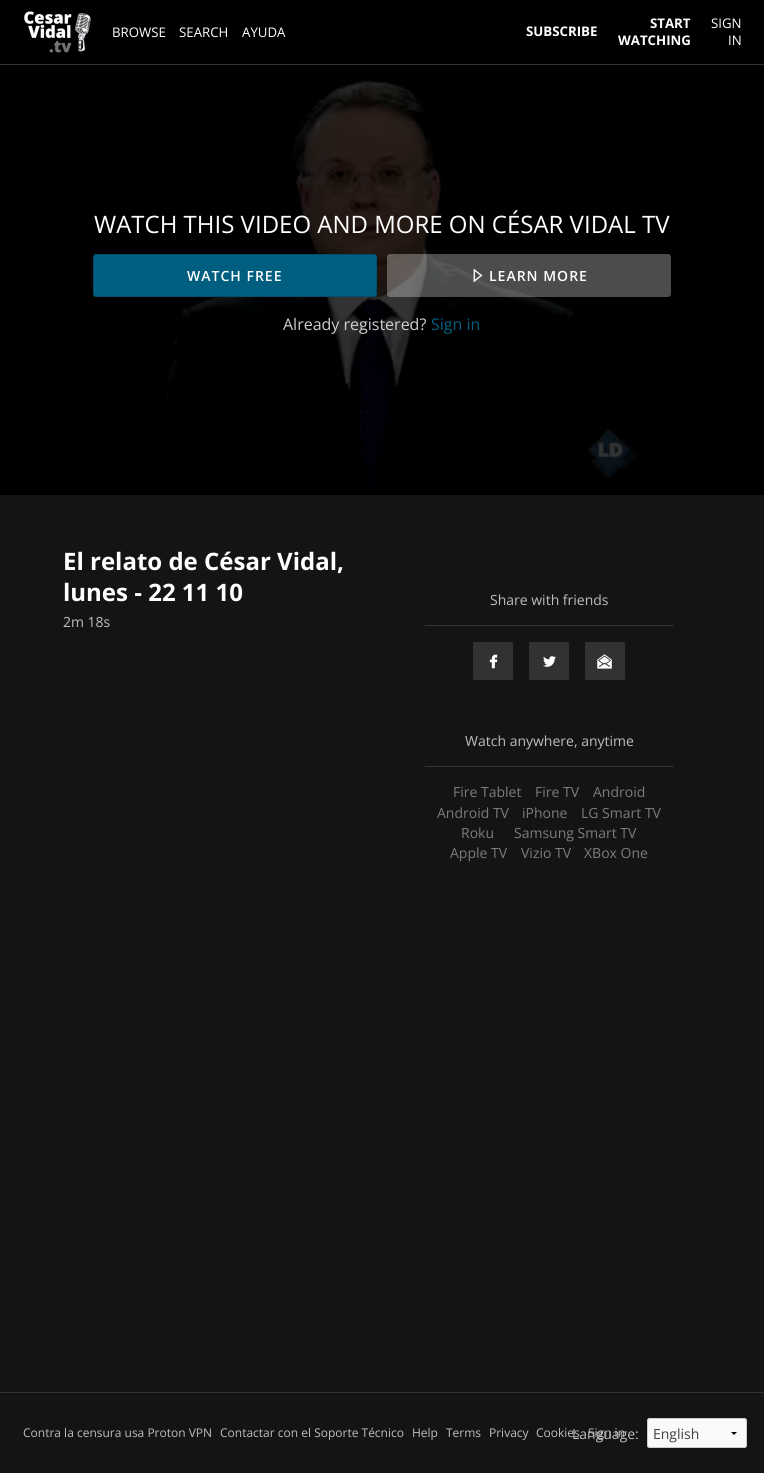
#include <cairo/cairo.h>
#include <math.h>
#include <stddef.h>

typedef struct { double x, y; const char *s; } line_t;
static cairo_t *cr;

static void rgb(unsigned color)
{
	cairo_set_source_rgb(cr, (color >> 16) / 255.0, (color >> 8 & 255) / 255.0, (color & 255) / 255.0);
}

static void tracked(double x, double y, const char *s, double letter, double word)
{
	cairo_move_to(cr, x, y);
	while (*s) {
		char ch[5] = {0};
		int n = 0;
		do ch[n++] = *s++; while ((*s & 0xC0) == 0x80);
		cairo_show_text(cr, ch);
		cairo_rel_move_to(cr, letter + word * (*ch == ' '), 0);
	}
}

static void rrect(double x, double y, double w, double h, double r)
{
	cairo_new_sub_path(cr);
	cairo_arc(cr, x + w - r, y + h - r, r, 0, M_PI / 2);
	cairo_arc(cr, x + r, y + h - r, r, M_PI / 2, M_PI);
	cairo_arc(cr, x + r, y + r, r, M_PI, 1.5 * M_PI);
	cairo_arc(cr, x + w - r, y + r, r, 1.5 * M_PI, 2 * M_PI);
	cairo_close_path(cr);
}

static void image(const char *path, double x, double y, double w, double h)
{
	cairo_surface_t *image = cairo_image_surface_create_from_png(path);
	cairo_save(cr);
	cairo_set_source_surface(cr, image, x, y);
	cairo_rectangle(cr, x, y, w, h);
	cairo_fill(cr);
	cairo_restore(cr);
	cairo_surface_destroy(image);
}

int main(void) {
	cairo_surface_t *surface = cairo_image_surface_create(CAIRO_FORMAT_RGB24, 764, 1473);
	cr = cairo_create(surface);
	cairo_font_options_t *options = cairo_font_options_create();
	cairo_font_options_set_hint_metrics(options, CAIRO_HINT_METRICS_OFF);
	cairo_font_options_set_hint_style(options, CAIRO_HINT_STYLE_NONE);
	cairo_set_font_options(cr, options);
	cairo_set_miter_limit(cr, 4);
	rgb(0x141414);
	cairo_paint(cr);
	rgb(0x000000);
	cairo_rectangle(cr, 0, 0, 764, 64);
	cairo_fill(cr);
	rgb(0x323232);
	cairo_rectangle(cr, 0, 64, 764, 1);
	cairo_fill(cr);
	image("img/1.png", 24, 11, 67, 42);
	rgb(0x000000);
	cairo_rectangle(cr, 0, 65, 764, 430);
	cairo_fill(cr);
	image("img/2.png", 153, 79, 487, 416);
	rgb(0x005e80);
	rrect(93.5, 254.5, 283, 42, 2.5);
	cairo_fill_preserve(cr);
	rgb(0x00506d);
	cairo_set_line_width(cr, 1);
	cairo_stroke(cr);
	cairo_set_source_rgba(cr, 1, 1, 1, 0.3);
	rrect(387, 254, 284, 43, 3);
	cairo_fill(cr);
	image("img/3.png", 473, 268, 10, 15);
	rgb(0x323232);
	cairo_rectangle(cr, 425, 625, 249, 1);
	cairo_fill(cr);
	rrect(472, 641, 42, 40, 3);
	cairo_fill(cr);
	image("img/4.png", 489, 654, 9, 15);
	rrect(472.5, 641.5, 41, 39, 2.5);
	rgb(0x141414);
	cairo_stroke(cr);
	rgb(0x323232);
	rrect(528, 641, 42, 40, 3);
	cairo_fill(cr);
	image("img/5.png", 543, 656, 13, 11);
	rrect(528.5, 641.5, 41, 39, 2.5);
	rgb(0x141414);
	cairo_stroke(cr);
	rgb(0x323232);
	rrect(584, 641, 42, 40, 3);
	cairo_fill(cr);
	image("img/6.png", 597, 654, 15, 15);
	rrect(584.5, 641.5, 41, 39, 2.5);
	rgb(0x141414);
	cairo_stroke(cr);
	rgb(0x323232);
	cairo_rectangle(cr, 425, 766, 249, 1);
	cairo_fill(cr);
	cairo_rectangle(cr, 0, 1392, 764, 1);
	cairo_fill(cr);
	rgb(0xfafafa);
	rrect(647, 1418, 100, 30, 3);
	cairo_fill(cr);
	rgb(0x000000);
	cairo_new_path(cr);
	cairo_move_to(cr, 737, 1432);
	cairo_line_to(cr, 734, 1435);
	cairo_line_to(cr, 731, 1432);
	cairo_close_path(cr);
	cairo_fill(cr);
	rrect(647.5, 1418.5, 99, 29, 2.5);
	rgb(0xcccccc);
	cairo_stroke(cr);
	cairo_select_font_face(cr, "Open Sans", CAIRO_FONT_SLANT_NORMAL, CAIRO_FONT_WEIGHT_NORMAL);
	cairo_set_font_size(cr, 13.25);
	rgb(0xffffff);
	{
		static const line_t items[] = {
			{112, 37, "BROWSE"},
			{179, 37, "SEARCH"},
			{242, 37, "AYUDA"},
		};
		for (size_t i = 0; i < sizeof items / sizeof *items; i++) {
			cairo_move_to(cr, items[i].x, items[i].y);
			cairo_show_text(cr, items[i].s);
		}
	}
	cairo_select_font_face(cr, "Open Sans", CAIRO_FONT_SLANT_NORMAL, CAIRO_FONT_WEIGHT_BOLD);
	{
		static const line_t items[] = {
			{526, 36, "SUBSCRIBE"},
			{650, 28, "START"},
			{618, 45, "WATCHING"},
		};
		for (size_t i = 0; i < sizeof items / sizeof *items; i++) {
			cairo_move_to(cr, items[i].x, items[i].y);
			cairo_show_text(cr, items[i].s);
		}
	}
	cairo_select_font_face(cr, "Open Sans", CAIRO_FONT_SLANT_NORMAL, CAIRO_FONT_WEIGHT_NORMAL);
	cairo_move_to(cr, 711, 28);
	cairo_show_text(cr, "SIGN");
	cairo_move_to(cr, 728, 45);
	cairo_show_text(cr, "IN");
	cairo_set_font_size(cr, 24);
	cairo_move_to(cr, 94, 233);
	cairo_show_text(cr, "WATCH THIS VIDEO AND MORE ON CÉSAR VIDAL TV");
	cairo_select_font_face(cr, "Open Sans SemiBold", CAIRO_FONT_SLANT_NORMAL, CAIRO_FONT_WEIGHT_NORMAL);
	cairo_set_font_size(cr, 14);
	tracked(187, 281, "WATCH FREE", 1, 0);
	tracked(489, 281, "LEARN MORE", 1, 0);
	cairo_select_font_face(cr, "Open Sans", CAIRO_FONT_SLANT_NORMAL, CAIRO_FONT_WEIGHT_NORMAL);
	cairo_set_font_size(cr, 16);
	rgb(0xcfcfcf);
	cairo_move_to(cr, 283, 330);
	cairo_show_text(cr, "Already registered?");
	rgb(0x005e80);
	cairo_move_to(cr, 431, 330);
	cairo_show_text(cr, "Sign in");
	cairo_select_font_face(cr, "Open Sans", CAIRO_FONT_SLANT_NORMAL, CAIRO_FONT_WEIGHT_BOLD);
	cairo_set_font_size(cr, 24);
	rgb(0xffffff);
	cairo_move_to(cr, 63, 570);
	cairo_show_text(cr, "El relato de César Vidal,");
	cairo_move_to(cr, 63, 601);
	cairo_show_text(cr, "lunes - 22 11 10");
	cairo_select_font_face(cr, "Open Sans", CAIRO_FONT_SLANT_NORMAL, CAIRO_FONT_WEIGHT_NORMAL);
	cairo_set_font_size(cr, 14);
	rgb(0xbebebb);
	{
		static const line_t items[] = {
			{63, 627, "2m 18s"},
			{490, 605, "Share with friends"},
			{465, 746, "Watch anywhere, anytime"},
		};
		for (size_t i = 0; i < sizeof items / sizeof *items; i++) {
			cairo_move_to(cr, items[i].x, items[i].y);
			cairo_show_text(cr, items[i].s);
		}
	}
	rgb(0x7c7c7c);
	{
		static const line_t items[] = {
			{453, 797, "Fire Tablet"},
			{535, 797, "Fire TV"},
			{593, 797, "Android"},
			{437, 818, "Android TV"},
			{522, 818, "iPhone"},
			{581, 818, "LG Smart TV"},
			{461, 838, "Roku"},
			{514, 838, "Samsung Smart TV"},
			{450, 858, "Apple TV"},
			{521, 858, "Vizio TV"},
			{584, 858, "XBox One"},
		};
		for (size_t i = 0; i < sizeof items / sizeof *items; i++) {
			cairo_move_to(cr, items[i].x, items[i].y);
			cairo_show_text(cr, items[i].s);
		}
	}
	cairo_set_font_size(cr, 12);
	rgb(0xbebebb);
	{
		static const line_t items[] = {
			{23, 1437, "Contra la censura usa Proton VPN"},
			{220, 1437, "Contactar con el Soporte Técnico"},
			{412, 1437, "Help"},
			{446, 1437, "Terms"},
			{489, 1437, "Privacy"},
			{536, 1437, "Cookies"},
			{588, 1437, "Sign in"},
		};
		for (size_t i = 0; i < sizeof items / sizeof *items; i++) {
			cairo_move_to(cr, items[i].x, items[i].y);
			cairo_show_text(cr, items[i].s);
		}
	}
	cairo_set_font_size(cr, 14);
	cairo_move_to(cr, 572, 1439);
	cairo_show_text(cr, "Language:");
	rgb(0x3f3f3f);
	cairo_move_to(cr, 653, 1439);
	cairo_show_text(cr, "English");
	cairo_surface_write_to_png(surface, "page.png");
	cairo_font_options_destroy(options);
	cairo_destroy(cr);
	cairo_surface_destroy(surface);
	return 0;
}
